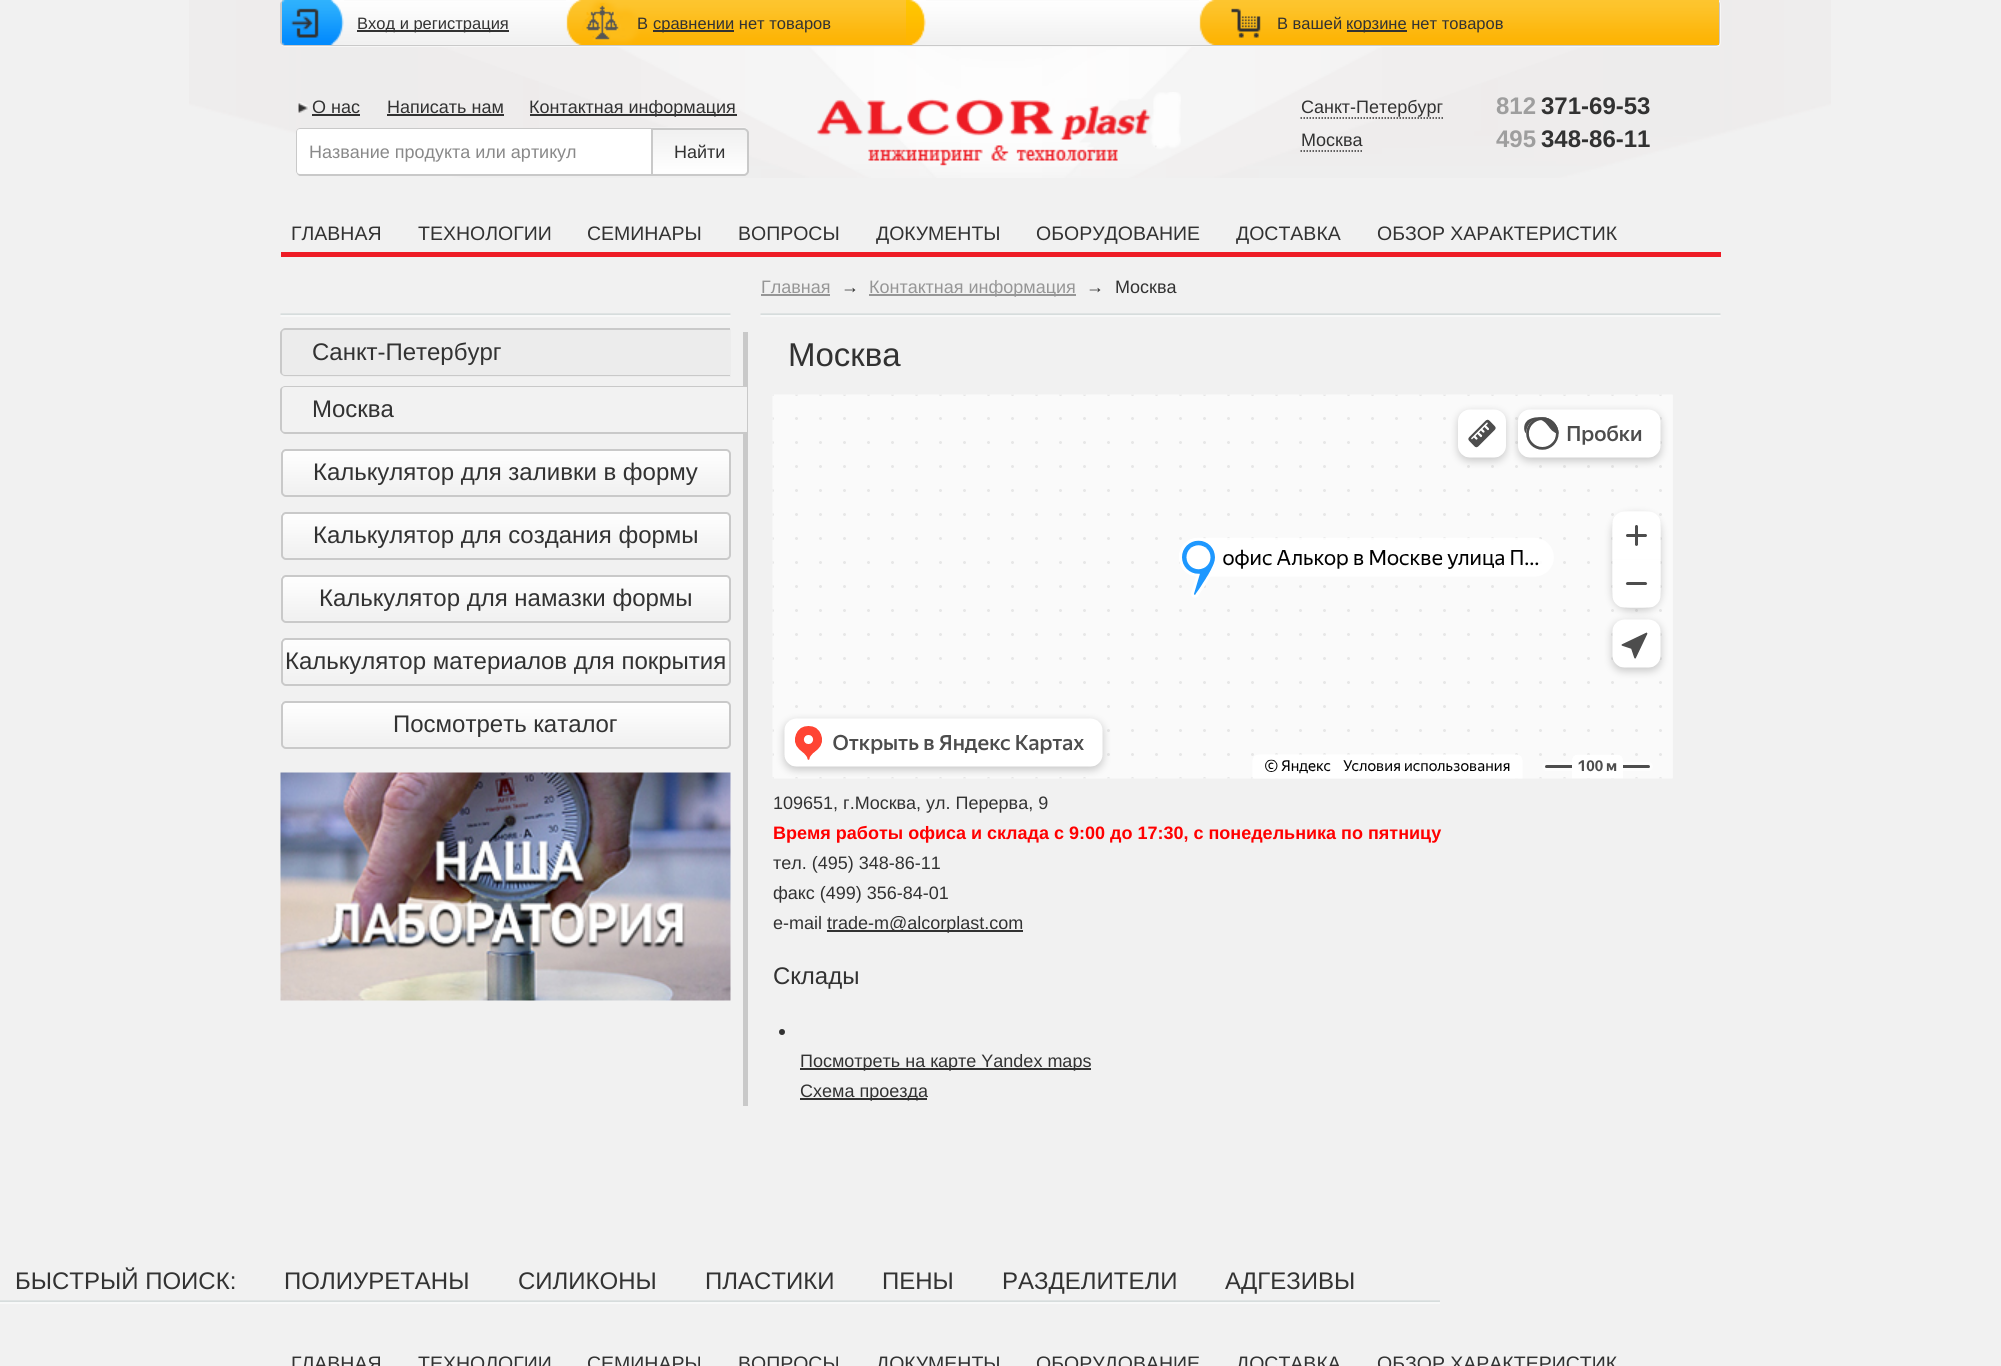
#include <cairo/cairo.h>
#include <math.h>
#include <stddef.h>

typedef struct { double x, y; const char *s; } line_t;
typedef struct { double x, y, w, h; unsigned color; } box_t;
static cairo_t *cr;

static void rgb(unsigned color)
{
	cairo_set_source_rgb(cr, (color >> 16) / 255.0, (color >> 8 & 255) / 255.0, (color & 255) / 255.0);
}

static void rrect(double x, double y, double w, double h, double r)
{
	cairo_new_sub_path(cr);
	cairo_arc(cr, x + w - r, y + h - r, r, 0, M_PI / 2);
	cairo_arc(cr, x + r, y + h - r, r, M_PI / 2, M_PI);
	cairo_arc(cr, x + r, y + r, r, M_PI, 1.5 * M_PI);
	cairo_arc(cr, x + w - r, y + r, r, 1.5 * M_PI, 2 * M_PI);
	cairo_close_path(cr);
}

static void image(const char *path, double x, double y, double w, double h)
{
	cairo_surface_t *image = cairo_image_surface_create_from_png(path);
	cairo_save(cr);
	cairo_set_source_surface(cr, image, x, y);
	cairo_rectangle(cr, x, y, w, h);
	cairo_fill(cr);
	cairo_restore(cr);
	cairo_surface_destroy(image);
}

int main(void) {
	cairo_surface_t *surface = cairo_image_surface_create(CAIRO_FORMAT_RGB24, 2001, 1366);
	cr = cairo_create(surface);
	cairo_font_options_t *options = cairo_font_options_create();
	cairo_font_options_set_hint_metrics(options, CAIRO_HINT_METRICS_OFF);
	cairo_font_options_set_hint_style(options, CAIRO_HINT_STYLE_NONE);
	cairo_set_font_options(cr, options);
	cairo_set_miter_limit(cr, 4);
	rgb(0xf1f1f1);
	cairo_paint(cr);
	image("img/1.png", 189, 0, 1642, 178);
	rgb(0xf7f7f7);
	rrect(281, 0, 1440, 47, 5);
	cairo_fill(cr);
	image("img/2.png", 280, 0, 1440, 46);
	rgb(0xc9c9c9);
	cairo_set_fill_rule(cr, CAIRO_FILL_RULE_EVEN_ODD);
	cairo_new_path(cr);
	cairo_move_to(cr, 285, 0);
	cairo_line_to(cr, 1716, 0);
	cairo_curve_to(cr, 1718, 0, 1720, 2, 1720, 4);
	cairo_line_to(cr, 1720, 42);
	cairo_curve_to(cr, 1720, 44, 1718, 46, 1716, 46);
	cairo_line_to(cr, 285, 46);
	cairo_curve_to(cr, 283, 46, 280, 44, 280, 42);
	cairo_line_to(cr, 280, 4);
	cairo_curve_to(cr, 280, 2, 283, 0, 285, 0);
	cairo_close_path(cr);
	cairo_move_to(cr, 285, 0);
	cairo_line_to(cr, 1716, 0);
	cairo_curve_to(cr, 1718, 0, 1719, 2, 1719, 4);
	cairo_line_to(cr, 1719, 42);
	cairo_curve_to(cr, 1719, 44, 1718, 45, 1716, 45);
	cairo_line_to(cr, 285, 45);
	cairo_curve_to(cr, 283, 45, 282, 44, 282, 42);
	cairo_line_to(cr, 282, 4);
	cairo_curve_to(cr, 282, 2, 283, 0, 285, 0);
	cairo_close_path(cr);
	cairo_fill(cr);
	image("img/3.png", 282, 0, 62, 45);
	rgb(0x323232);
	cairo_rectangle(cr, 357, 30, 152, 2);
	cairo_fill(cr);
	image("img/4.png", 566, 0, 340, 45);
	cairo_rectangle(cr, 653, 30, 81, 2);
	cairo_fill(cr);
	image("img/5.png", 906, 0, 20, 45);
	image("img/6.png", 1199, 0, 520, 45);
	cairo_rectangle(cr, 1347, 30, 60, 2);
	cairo_fill(cr);
	image("img/7.png", 298, 102, 11, 11);
	{
		static const box_t items[] = {
			{312, 114, 48, 2, 0x323232},
			{387, 114, 117, 2, 0x323232},
			{530, 114, 207, 2, 0x323232},
		};
		for (size_t i = 0; i < sizeof items / sizeof *items; i++) {
			rgb(items[i].color);
			cairo_rectangle(cr, items[i].x, items[i].y, items[i].w, items[i].h);
			cairo_fill(cr);
		}
	}
	image("img/8.png", 817, 92, 364, 74);
	rgb(0xffffff);
	cairo_new_path(cr);
	cairo_move_to(cr, 301, 128);
	cairo_line_to(cr, 651, 128);
	cairo_line_to(cr, 651, 176);
	cairo_line_to(cr, 301, 176);
	cairo_curve_to(cr, 298, 176, 296, 174, 296, 171);
	cairo_line_to(cr, 296, 133);
	cairo_curve_to(cr, 296, 130, 298, 128, 301, 128);
	cairo_close_path(cr);
	cairo_fill(cr);
	rgb(0xc9c9c9);
	cairo_new_path(cr);
	cairo_move_to(cr, 300, 128);
	cairo_line_to(cr, 651, 128);
	cairo_line_to(cr, 651, 176);
	cairo_line_to(cr, 300, 176);
	cairo_curve_to(cr, 298, 176, 296, 173, 296, 171);
	cairo_line_to(cr, 296, 132);
	cairo_curve_to(cr, 296, 130, 298, 128, 300, 128);
	cairo_close_path(cr);
	cairo_move_to(cr, 300, 129);
	cairo_line_to(cr, 651, 129);
	cairo_line_to(cr, 651, 174);
	cairo_line_to(cr, 300, 174);
	cairo_curve_to(cr, 298, 174, 297, 173, 297, 171);
	cairo_line_to(cr, 297, 132);
	cairo_curve_to(cr, 297, 130, 298, 129, 300, 129);
	cairo_close_path(cr);
	cairo_fill(cr);
	image("img/9.png", 651, 127, 97, 48);
	cairo_new_path(cr);
	cairo_move_to(cr, 652, 129);
	cairo_line_to(cr, 744, 129);
	cairo_curve_to(cr, 746, 129, 748, 131, 748, 133);
	cairo_line_to(cr, 748, 171);
	cairo_curve_to(cr, 748, 173, 746, 175, 744, 175);
	cairo_line_to(cr, 652, 175);
	cairo_close_path(cr);
	cairo_stroke(cr);
	cairo_new_path(cr);
	cairo_move_to(cr, 1300.5, 118);
	cairo_line_to(cr, 1443, 118);
	rgb(0x323232);
	cairo_set_line_width(cr, 1.5);
	cairo_set_dash(cr, (double[]){1.5, 1.5}, 2, 0);
	cairo_stroke(cr);
	cairo_new_path(cr);
	cairo_move_to(cr, 1300.5, 151);
	cairo_line_to(cr, 1362, 151);
	cairo_stroke(cr);
	rgb(0xee1c25);
	cairo_rectangle(cr, 281, 252, 1440, 5);
	cairo_fill(cr);
	image("img/10.png", 280, 313, 451, 4);
	rgb(0xececec);
	cairo_new_path(cr);
	cairo_move_to(cr, 286, 329);
	cairo_line_to(cr, 731, 329);
	cairo_line_to(cr, 731, 377);
	cairo_line_to(cr, 286, 377);
	cairo_curve_to(cr, 283, 377, 281, 375, 281, 372);
	cairo_line_to(cr, 281, 334);
	cairo_curve_to(cr, 281, 331, 283, 329, 286, 329);
	cairo_close_path(cr);
	cairo_fill(cr);
	rgb(0xc9c9c9);
	cairo_new_path(cr);
	cairo_move_to(cr, 285, 328);
	cairo_line_to(cr, 730, 328);
	cairo_line_to(cr, 730, 376);
	cairo_line_to(cr, 285, 376);
	cairo_curve_to(cr, 283, 376, 280, 374, 280, 372);
	cairo_line_to(cr, 280, 333);
	cairo_curve_to(cr, 280, 331, 283, 328, 285, 328);
	cairo_close_path(cr);
	cairo_move_to(cr, 285, 330);
	cairo_line_to(cr, 730, 330);
	cairo_line_to(cr, 730, 375);
	cairo_line_to(cr, 285, 375);
	cairo_curve_to(cr, 283, 375, 282, 374, 282, 372);
	cairo_line_to(cr, 282, 333);
	cairo_curve_to(cr, 282, 331, 283, 330, 285, 330);
	cairo_close_path(cr);
	cairo_fill(cr);
	cairo_rectangle(cr, 743, 332, 5, 774);
	cairo_fill(cr);
	rgb(0xf2f2f2);
	cairo_new_path(cr);
	cairo_move_to(cr, 286, 386);
	cairo_line_to(cr, 747, 386);
	cairo_line_to(cr, 747, 434);
	cairo_line_to(cr, 286, 434);
	cairo_curve_to(cr, 283, 434, 281, 432, 281, 429);
	cairo_line_to(cr, 281, 391);
	cairo_curve_to(cr, 281, 388, 283, 386, 286, 386);
	cairo_close_path(cr);
	cairo_fill(cr);
	rgb(0xc9c9c9);
	cairo_new_path(cr);
	cairo_move_to(cr, 285, 386);
	cairo_line_to(cr, 747, 386);
	cairo_line_to(cr, 747, 434);
	cairo_line_to(cr, 285, 434);
	cairo_curve_to(cr, 283, 434, 280, 431, 280, 429);
	cairo_line_to(cr, 280, 390);
	cairo_curve_to(cr, 280, 388, 283, 386, 285, 386);
	cairo_close_path(cr);
	cairo_move_to(cr, 285, 387);
	cairo_line_to(cr, 747, 387);
	cairo_line_to(cr, 747, 432);
	cairo_line_to(cr, 285, 432);
	cairo_curve_to(cr, 283, 432, 282, 431, 282, 429);
	cairo_line_to(cr, 282, 390);
	cairo_curve_to(cr, 282, 388, 283, 387, 285, 387);
	cairo_close_path(cr);
	cairo_fill(cr);
	image("img/11.png", 281, 449, 449, 47);
	rrect(282, 450, 448, 46, 4);
	cairo_set_line_width(cr, 2);
	cairo_set_dash(cr, NULL, 0, 0);
	cairo_stroke(cr);
	image("img/11.png", 281, 512, 449, 47);
	rrect(282, 513, 448, 46, 4);
	cairo_stroke(cr);
	image("img/11.png", 281, 575, 449, 47);
	rrect(282, 576, 448, 46, 4);
	cairo_stroke(cr);
	image("img/11.png", 281, 638, 449, 47);
	rrect(282, 639, 448, 46, 4);
	cairo_stroke(cr);
	image("img/11.png", 281, 701, 449, 47);
	rrect(282, 702, 448, 46, 4);
	cairo_stroke(cr);
	image("img/12.png", 280, 772, 451, 229);
	rgb(0x969696);
	cairo_rectangle(cr, 761, 294, 69, 2);
	cairo_fill(cr);
	cairo_rectangle(cr, 869, 294, 207, 2);
	cairo_fill(cr);
	image("img/13.png", 760, 313, 961, 4);
	image("img/14.png", 772, 394, 901, 385);
	rgb(0x323232);
	cairo_rectangle(cr, 827, 930, 196, 2);
	cairo_fill(cr);
	cairo_arc(cr, 782, 1032, 3, 0, 2 * M_PI);
	cairo_fill(cr);
	cairo_rectangle(cr, 800, 1068, 291, 2);
	cairo_fill(cr);
	cairo_rectangle(cr, 800, 1098, 127, 2);
	cairo_fill(cr);
	image("img/15.png", 0, 1300, 1440, 4);
	cairo_select_font_face(cr, "Liberation Sans", CAIRO_FONT_SLANT_NORMAL, CAIRO_FONT_WEIGHT_NORMAL);
	cairo_set_font_size(cr, 16.5);
	{
		static const line_t items[] = {
			{357, 29, "Вход и регистрация"},
			{637, 29, "В"},
			{653, 29, "сравнении нет товаров"},
			{1277, 29, "В вашей"},
			{1346, 29, "корзине нет товаров"},
		};
		for (size_t i = 0; i < sizeof items / sizeof *items; i++) {
			cairo_move_to(cr, items[i].x, items[i].y);
			cairo_show_text(cr, items[i].s);
		}
	}
	cairo_set_font_size(cr, 18);
	{
		static const line_t items[] = {
			{312, 113, "О нас"},
			{387, 113, "Написать нам"},
			{529, 113, "Контактная информация"},
		};
		for (size_t i = 0; i < sizeof items / sizeof *items; i++) {
			cairo_move_to(cr, items[i].x, items[i].y);
			cairo_show_text(cr, items[i].s);
		}
	}
	rgb(0x898989);
	cairo_move_to(cr, 309, 158);
	cairo_show_text(cr, "Название продукта или артикул");
	rgb(0x323232);
	cairo_move_to(cr, 674, 158);
	cairo_show_text(cr, "Найти");
	cairo_move_to(cr, 1301, 113);
	cairo_show_text(cr, "Санкт-Петербург");
	cairo_select_font_face(cr, "Liberation Sans", CAIRO_FONT_SLANT_NORMAL, CAIRO_FONT_WEIGHT_BOLD);
	cairo_set_font_size(cr, 24);
	rgb(0x9e9e9e);
	cairo_move_to(cr, 1496, 114);
	cairo_show_text(cr, "812");
	rgb(0x323232);
	cairo_move_to(cr, 1541, 114);
	cairo_show_text(cr, "371-69-53");
	cairo_select_font_face(cr, "Liberation Sans", CAIRO_FONT_SLANT_NORMAL, CAIRO_FONT_WEIGHT_NORMAL);
	cairo_set_font_size(cr, 18);
	cairo_move_to(cr, 1301, 146);
	cairo_show_text(cr, "Москва");
	cairo_select_font_face(cr, "Liberation Sans", CAIRO_FONT_SLANT_NORMAL, CAIRO_FONT_WEIGHT_BOLD);
	cairo_set_font_size(cr, 24);
	rgb(0x9e9e9e);
	cairo_move_to(cr, 1496, 147);
	cairo_show_text(cr, "495");
	rgb(0x323232);
	cairo_move_to(cr, 1541, 147);
	cairo_show_text(cr, "348-86-11");
	cairo_select_font_face(cr, "Liberation Sans", CAIRO_FONT_SLANT_NORMAL, CAIRO_FONT_WEIGHT_NORMAL);
	cairo_set_font_size(cr, 19.5);
	{
		static const line_t items[] = {
			{291, 240, "ГЛАВНАЯ"},
			{418, 240, "ТЕХНОЛОГИИ"},
			{587, 240, "СЕМИНАРЫ"},
			{738, 240, "ВОПРОСЫ"},
			{876, 240, "ДОКУМЕНТЫ"},
			{1036, 240, "ОБОРУДОВАНИЕ"},
			{1236, 240, "ДОСТАВКА"},
			{1377, 240, "ОБЗОР ХАРАКТЕРИСТИК"},
		};
		for (size_t i = 0; i < sizeof items / sizeof *items; i++) {
			cairo_move_to(cr, items[i].x, items[i].y);
			cairo_show_text(cr, items[i].s);
		}
	}
	cairo_set_font_size(cr, 24);
	{
		static const line_t items[] = {
			{312, 360, "Санкт-Петербург"},
			{312, 417, "Москва"},
			{313, 480, "Калькулятор для заливки в форму"},
			{313, 543, "Калькулятор для создания формы"},
			{319, 606, "Калькулятор для намазки формы"},
			{285, 669, "Калькулятор материалов для покрытия"},
			{393, 732, "Посмотреть каталог"},
		};
		for (size_t i = 0; i < sizeof items / sizeof *items; i++) {
			cairo_move_to(cr, items[i].x, items[i].y);
			cairo_show_text(cr, items[i].s);
		}
	}
	cairo_set_font_size(cr, 18);
	rgb(0x969696);
	cairo_move_to(cr, 761, 293);
	cairo_show_text(cr, "Главная");
	rgb(0x323232);
	cairo_move_to(cr, 841, 293);
	cairo_show_text(cr, "→");
	rgb(0x969696);
	cairo_move_to(cr, 869, 293);
	cairo_show_text(cr, "Контактная информация");
	rgb(0x323232);
	cairo_move_to(cr, 1086, 293);
	cairo_show_text(cr, "→");
	cairo_move_to(cr, 1115, 293);
	cairo_show_text(cr, "Москва");
	cairo_set_font_size(cr, 33);
	cairo_move_to(cr, 788, 366);
	cairo_show_text(cr, "Москва");
	cairo_set_font_size(cr, 18);
	cairo_move_to(cr, 773, 809);
	cairo_show_text(cr, "109651, г.Москва, ул. Перерва, 9");
	cairo_select_font_face(cr, "Liberation Sans", CAIRO_FONT_SLANT_NORMAL, CAIRO_FONT_WEIGHT_BOLD);
	rgb(0xff0000);
	cairo_move_to(cr, 773, 839);
	cairo_show_text(cr, "Время работы офиса и склада с 9:00 до 17:30, с понедельника по пятницу");
	cairo_select_font_face(cr, "Liberation Sans", CAIRO_FONT_SLANT_NORMAL, CAIRO_FONT_WEIGHT_NORMAL);
	rgb(0x323232);
	{
		static const line_t items[] = {
			{773, 869, "тел. (495) 348-86-11"},
			{773, 899, "факс (499) 356-84-01"},
			{773, 929, "e-mail"},
			{827, 929, "trade-m@alcorplast.com"},
		};
		for (size_t i = 0; i < sizeof items / sizeof *items; i++) {
			cairo_move_to(cr, items[i].x, items[i].y);
			cairo_show_text(cr, items[i].s);
		}
	}
	cairo_set_font_size(cr, 24);
	cairo_move_to(cr, 773, 984);
	cairo_show_text(cr, "Склады");
	cairo_set_font_size(cr, 18);
	cairo_move_to(cr, 800, 1067);
	cairo_show_text(cr, "Посмотреть на карте Yandex maps");
	cairo_move_to(cr, 800, 1097);
	cairo_show_text(cr, "Cхема проезда");
	cairo_set_font_size(cr, 24);
	{
		static const line_t items[] = {
			{15, 1289, "БЫСТРЫЙ ПОИСК:"},
			{284, 1289, "ПОЛИУРЕТАНЫ"},
			{518, 1289, "СИЛИКОНЫ"},
			{705, 1289, "ПЛАСТИКИ"},
			{882, 1289, "ПЕНЫ"},
			{1002, 1289, "РАЗДЕЛИТЕЛИ"},
			{1225, 1289, "АДГЕЗИВЫ"},
		};
		for (size_t i = 0; i < sizeof items / sizeof *items; i++) {
			cairo_move_to(cr, items[i].x, items[i].y);
			cairo_show_text(cr, items[i].s);
		}
	}
	cairo_set_font_size(cr, 19.5);
	{
		static const line_t items[] = {
			{291, 1370, "ГЛАВНАЯ"},
			{418, 1370, "ТЕХНОЛОГИИ"},
			{587, 1370, "СЕМИНАРЫ"},
			{738, 1370, "ВОПРОСЫ"},
			{876, 1370, "ДОКУМЕНТЫ"},
			{1036, 1370, "ОБОРУДОВАНИЕ"},
			{1236, 1370, "ДОСТАВКА"},
			{1377, 1370, "ОБЗОР ХАРАКТЕРИСТИК"},
		};
		for (size_t i = 0; i < sizeof items / sizeof *items; i++) {
			cairo_move_to(cr, items[i].x, items[i].y);
			cairo_show_text(cr, items[i].s);
		}
	}
	cairo_surface_write_to_png(surface, "page.png");
	cairo_font_options_destroy(options);
	cairo_destroy(cr);
	cairo_surface_destroy(surface);
	return 0;
}
